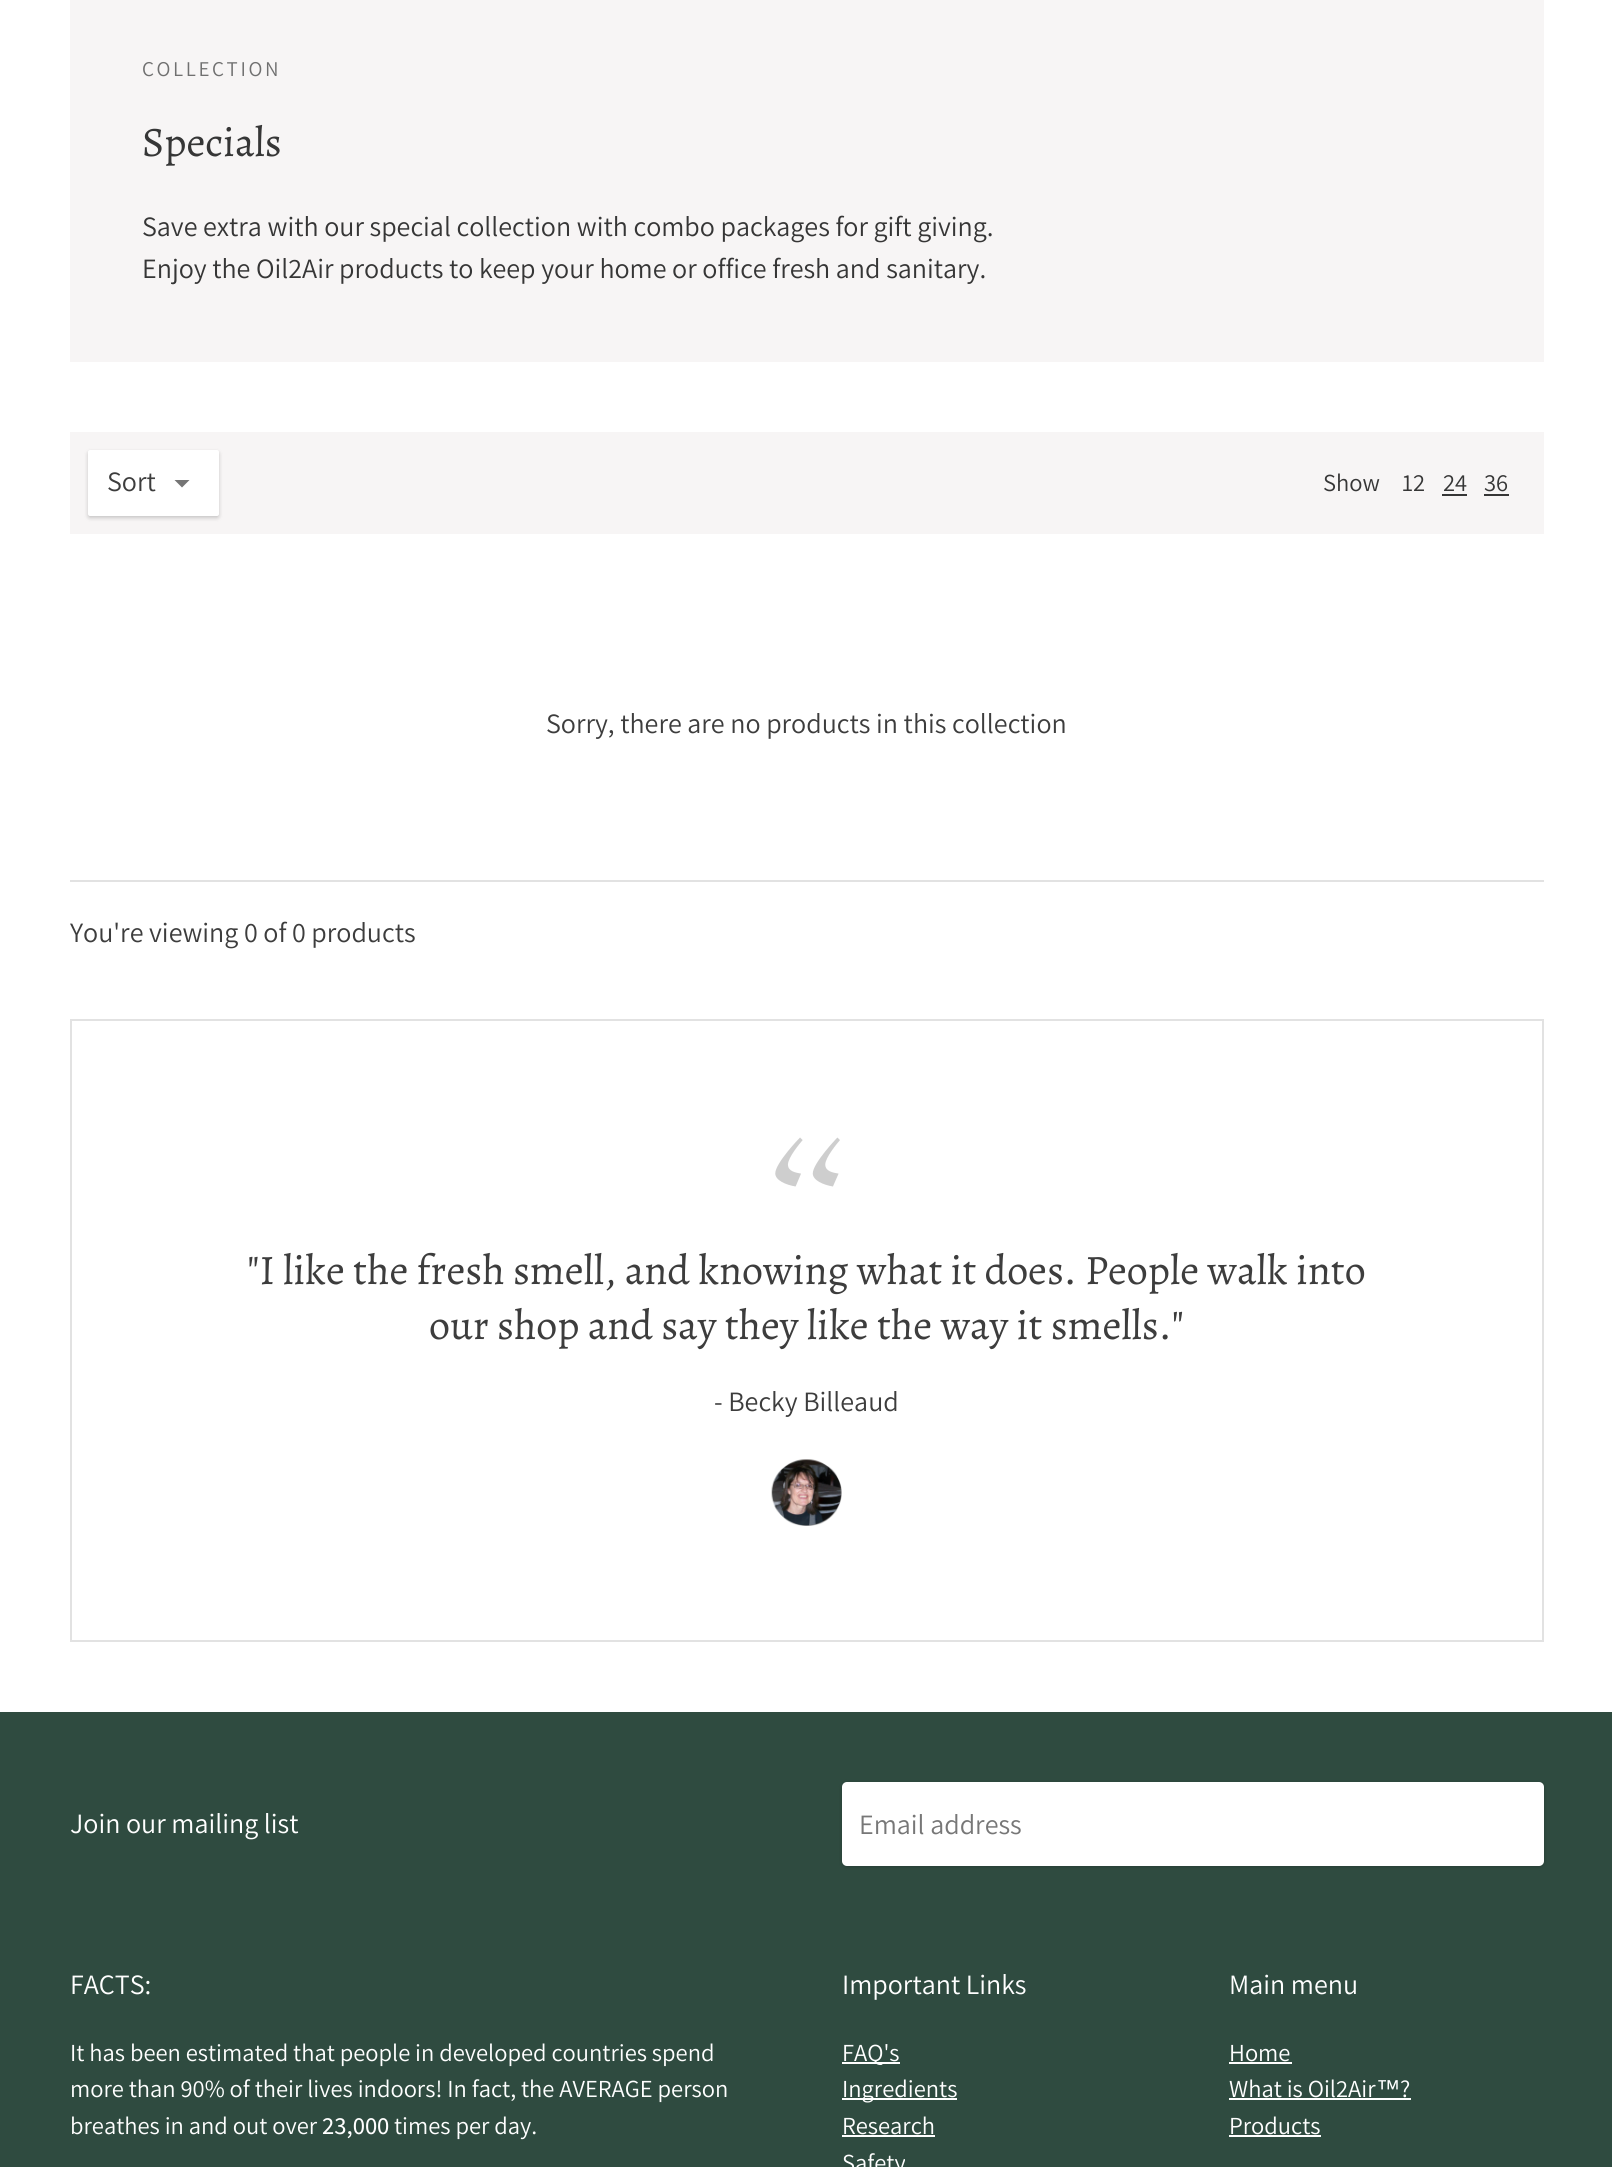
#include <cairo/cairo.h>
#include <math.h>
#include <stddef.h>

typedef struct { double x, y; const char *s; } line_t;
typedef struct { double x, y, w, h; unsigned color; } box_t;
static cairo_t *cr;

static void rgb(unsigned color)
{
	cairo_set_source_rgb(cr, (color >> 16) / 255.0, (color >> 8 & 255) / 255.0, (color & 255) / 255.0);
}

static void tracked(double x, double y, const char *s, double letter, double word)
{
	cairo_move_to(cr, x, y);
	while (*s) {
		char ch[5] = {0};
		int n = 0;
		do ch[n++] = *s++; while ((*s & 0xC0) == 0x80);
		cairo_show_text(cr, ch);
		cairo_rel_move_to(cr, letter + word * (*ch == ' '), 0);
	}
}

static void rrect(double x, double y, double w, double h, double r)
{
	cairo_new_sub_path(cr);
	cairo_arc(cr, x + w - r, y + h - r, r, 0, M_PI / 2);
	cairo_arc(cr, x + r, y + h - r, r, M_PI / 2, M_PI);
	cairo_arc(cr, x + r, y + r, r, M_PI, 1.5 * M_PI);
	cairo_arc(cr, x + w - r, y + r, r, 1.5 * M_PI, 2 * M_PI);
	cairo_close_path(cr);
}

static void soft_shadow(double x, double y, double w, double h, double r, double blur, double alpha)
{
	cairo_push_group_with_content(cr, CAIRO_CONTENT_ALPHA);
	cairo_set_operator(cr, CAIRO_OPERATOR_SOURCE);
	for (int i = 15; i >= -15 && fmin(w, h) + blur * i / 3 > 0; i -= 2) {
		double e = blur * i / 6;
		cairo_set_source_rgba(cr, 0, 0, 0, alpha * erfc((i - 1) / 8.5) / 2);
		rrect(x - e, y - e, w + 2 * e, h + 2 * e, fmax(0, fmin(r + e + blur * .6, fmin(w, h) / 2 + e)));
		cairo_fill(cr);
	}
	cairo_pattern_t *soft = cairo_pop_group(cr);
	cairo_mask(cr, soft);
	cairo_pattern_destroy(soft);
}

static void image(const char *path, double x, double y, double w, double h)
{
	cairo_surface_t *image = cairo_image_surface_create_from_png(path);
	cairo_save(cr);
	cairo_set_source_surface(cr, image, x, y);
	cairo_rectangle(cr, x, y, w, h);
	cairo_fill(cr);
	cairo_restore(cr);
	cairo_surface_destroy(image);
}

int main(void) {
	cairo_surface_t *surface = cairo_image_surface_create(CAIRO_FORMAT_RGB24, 1612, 2167);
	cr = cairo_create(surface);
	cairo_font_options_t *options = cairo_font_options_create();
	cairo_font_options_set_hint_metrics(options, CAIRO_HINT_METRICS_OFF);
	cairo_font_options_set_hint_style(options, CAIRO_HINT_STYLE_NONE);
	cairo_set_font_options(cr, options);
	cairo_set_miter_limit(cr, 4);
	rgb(0xffffff);
	cairo_paint(cr);
	rgb(0xf7f5f5);
	cairo_rectangle(cr, 70, 0, 1474, 362);
	cairo_fill(cr);
	cairo_rectangle(cr, 70, 432, 1474, 102);
	cairo_fill(cr);
	rgb(0x000000);
	soft_shadow(88, 452, 131, 66, 2, 2, 0.2);
	rgb(0xffffff);
	rrect(89, 451, 129, 64, 1);
	cairo_fill_preserve(cr);
	cairo_stroke(cr);
	rgb(0x757575);
	cairo_new_path(cr);
	cairo_move_to(cr, 174.5, 480);
	cairo_line_to(cr, 182, 487.5);
	cairo_line_to(cr, 189.5, 480);
	cairo_close_path(cr);
	cairo_fill(cr);
	{
		static const box_t items[] = {
			{1442, 494, 25, 2, 0x363636},
			{1484, 494, 25, 2, 0x363636},
			{70, 880, 1474, 2, 0xe2e2e2},
		};
		for (size_t i = 0; i < sizeof items / sizeof *items; i++) {
			rgb(items[i].color);
			cairo_rectangle(cr, items[i].x, items[i].y, items[i].w, items[i].h);
			cairo_fill(cr);
		}
	}
	cairo_rectangle(cr, 71, 1020, 1472, 621);
	cairo_stroke(cr);
	image("img/1.png", 775, 1137, 65, 50);
	image("img/2.png", 771, 1459, 71, 67);
	rgb(0x2f4b40);
	cairo_rectangle(cr, 0, 1712, 1612, 455);
	cairo_fill(cr);
	rgb(0x000000);
	soft_shadow(842, 1783, 702, 84, 5, 2, 0.2);
	rgb(0xffffff);
	rrect(842, 1782, 702, 84, 5);
	cairo_fill(cr);
	{
		static const box_t items[] = {
			{842, 2062, 58, 2, 0xffffff},
			{842, 2098, 115, 2, 0xffffff},
			{842, 2135, 93, 2, 0xffffff},
			{1229, 2062, 63, 2, 0xffffff},
			{1229, 2098, 182, 2, 0xffffff},
			{1229, 2135, 92, 2, 0xffffff},
		};
		for (size_t i = 0; i < sizeof items / sizeof *items; i++) {
			rgb(items[i].color);
			cairo_rectangle(cr, items[i].x, items[i].y, items[i].w, items[i].h);
			cairo_fill(cr);
		}
	}
	cairo_select_font_face(cr, "Assistant", CAIRO_FONT_SLANT_NORMAL, CAIRO_FONT_WEIGHT_NORMAL);
	cairo_set_font_size(cr, 21);
	rgb(0x707070);
	tracked(142, 76, "COLLECTION", 2.6, 0);
	cairo_select_font_face(cr, "Alegreya", CAIRO_FONT_SLANT_NORMAL, CAIRO_FONT_WEIGHT_NORMAL);
	cairo_set_font_size(cr, 42);
	rgb(0x363636);
	cairo_move_to(cr, 142, 156);
	cairo_show_text(cr, "Specials");
	cairo_select_font_face(cr, "Assistant", CAIRO_FONT_SLANT_NORMAL, CAIRO_FONT_WEIGHT_NORMAL);
	cairo_set_font_size(cr, 28);
	cairo_move_to(cr, 142, 236);
	cairo_show_text(cr, "Save extra with our special collection with combo packages for gift giving.");
	cairo_move_to(cr, 142, 278);
	cairo_show_text(cr, "Enjoy the Oil2Air products to keep your home or office fresh and sanitary.");
	rgb(0x3d3d3d);
	cairo_move_to(cr, 107, 491);
	cairo_show_text(cr, "Sort");
	cairo_set_font_size(cr, 24.5);
	rgb(0x363636);
	{
		static const line_t items[] = {
			{1323, 491, "Show"},
			{1402, 491, "12"},
			{1443, 491, "24"},
			{1484, 491, "36"},
		};
		for (size_t i = 0; i < sizeof items / sizeof *items; i++) {
			cairo_move_to(cr, items[i].x, items[i].y);
			cairo_show_text(cr, items[i].s);
		}
	}
	cairo_set_font_size(cr, 28);
	rgb(0x3d3d3d);
	cairo_move_to(cr, 546, 733);
	cairo_show_text(cr, "Sorry, there are no products in this collection");
	cairo_move_to(cr, 70, 942);
	cairo_show_text(cr, "You're viewing 0 of 0 products");
	cairo_select_font_face(cr, "Alegreya", CAIRO_FONT_SLANT_NORMAL, CAIRO_FONT_WEIGHT_NORMAL);
	cairo_set_font_size(cr, 42);
	cairo_move_to(cr, 247, 1284);
	cairo_show_text(cr, "\"I like the fresh smell, and knowing what it does. People walk into");
	cairo_move_to(cr, 429, 1339);
	cairo_show_text(cr, "our shop and say they like the way it smells.\"");
	cairo_select_font_face(cr, "Assistant", CAIRO_FONT_SLANT_NORMAL, CAIRO_FONT_WEIGHT_NORMAL);
	cairo_set_font_size(cr, 28);
	cairo_move_to(cr, 714, 1411);
	cairo_show_text(cr, "- Becky Billeaud");
	rgb(0xffffff);
	cairo_move_to(cr, 70, 1833);
	cairo_show_text(cr, "Join our mailing list");
	rgb(0x777777);
	cairo_move_to(cr, 859, 1834);
	cairo_show_text(cr, "Email address");
	rgb(0xffffff);
	cairo_move_to(cr, 70, 1994);
	cairo_show_text(cr, "FACTS:");
	cairo_set_font_size(cr, 24.5);
	{
		static const line_t items[] = {
			{70, 2061, "It has been estimated that people in developed countries spend"},
			{70, 2097, "more than 90% of their lives indoors! In fact, the AVERAGE person"},
			{70, 2134, "breathes in and out over"},
		};
		for (size_t i = 0; i < sizeof items / sizeof *items; i++) {
			cairo_move_to(cr, items[i].x, items[i].y);
			cairo_show_text(cr, items[i].s);
		}
	}
	cairo_select_font_face(cr, "Assistant Medium", CAIRO_FONT_SLANT_NORMAL, CAIRO_FONT_WEIGHT_NORMAL);
	cairo_move_to(cr, 322, 2134);
	cairo_show_text(cr, "23,000");
	cairo_select_font_face(cr, "Assistant", CAIRO_FONT_SLANT_NORMAL, CAIRO_FONT_WEIGHT_NORMAL);
	cairo_move_to(cr, 394, 2134);
	cairo_show_text(cr, "times per day.");
	cairo_set_font_size(cr, 28);
	cairo_move_to(cr, 842, 1994);
	cairo_show_text(cr, "Important Links");
	cairo_set_font_size(cr, 24.5);
	{
		static const line_t items[] = {
			{842, 2061, "FAQ's"},
			{842, 2097, "Ingredients"},
			{842, 2134, "Research"},
			{842, 2171, "Safety"},
		};
		for (size_t i = 0; i < sizeof items / sizeof *items; i++) {
			cairo_move_to(cr, items[i].x, items[i].y);
			cairo_show_text(cr, items[i].s);
		}
	}
	cairo_set_font_size(cr, 28);
	cairo_move_to(cr, 1229, 1994);
	cairo_show_text(cr, "Main menu");
	cairo_set_font_size(cr, 24.5);
	cairo_move_to(cr, 1229, 2061);
	cairo_show_text(cr, "Home");
	cairo_move_to(cr, 1229, 2097);
	cairo_show_text(cr, "What is Oil2Air");
	cairo_select_font_face(cr, "Liberation Sans", CAIRO_FONT_SLANT_NORMAL, CAIRO_FONT_WEIGHT_NORMAL);
	cairo_move_to(cr, 1376, 2097);
	cairo_show_text(cr, "™");
	cairo_select_font_face(cr, "Assistant", CAIRO_FONT_SLANT_NORMAL, CAIRO_FONT_WEIGHT_NORMAL);
	cairo_move_to(cr, 1400, 2097);
	cairo_show_text(cr, "?");
	cairo_move_to(cr, 1229, 2134);
	cairo_show_text(cr, "Products");
	cairo_surface_write_to_png(surface, "page.png");
	cairo_font_options_destroy(options);
	cairo_destroy(cr);
	cairo_surface_destroy(surface);
	return 0;
}
